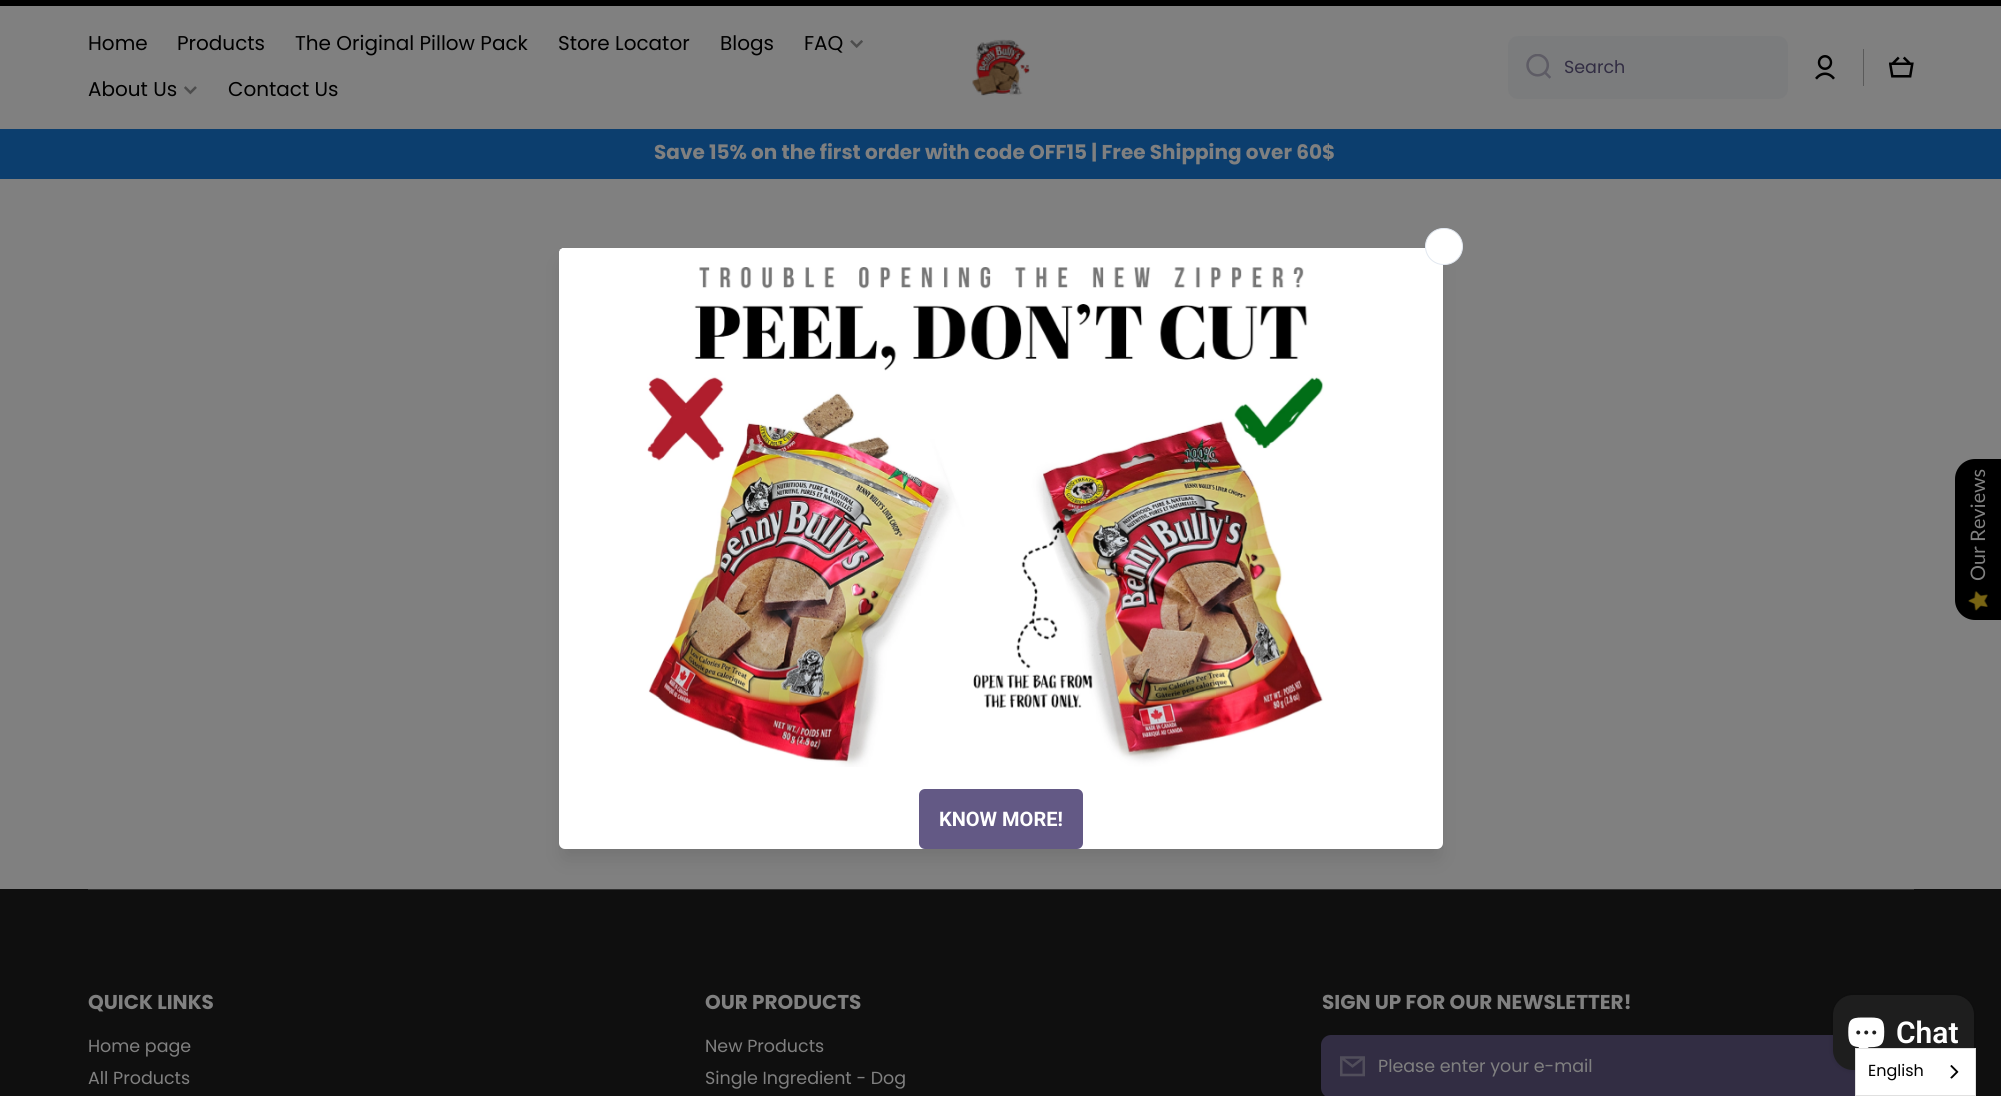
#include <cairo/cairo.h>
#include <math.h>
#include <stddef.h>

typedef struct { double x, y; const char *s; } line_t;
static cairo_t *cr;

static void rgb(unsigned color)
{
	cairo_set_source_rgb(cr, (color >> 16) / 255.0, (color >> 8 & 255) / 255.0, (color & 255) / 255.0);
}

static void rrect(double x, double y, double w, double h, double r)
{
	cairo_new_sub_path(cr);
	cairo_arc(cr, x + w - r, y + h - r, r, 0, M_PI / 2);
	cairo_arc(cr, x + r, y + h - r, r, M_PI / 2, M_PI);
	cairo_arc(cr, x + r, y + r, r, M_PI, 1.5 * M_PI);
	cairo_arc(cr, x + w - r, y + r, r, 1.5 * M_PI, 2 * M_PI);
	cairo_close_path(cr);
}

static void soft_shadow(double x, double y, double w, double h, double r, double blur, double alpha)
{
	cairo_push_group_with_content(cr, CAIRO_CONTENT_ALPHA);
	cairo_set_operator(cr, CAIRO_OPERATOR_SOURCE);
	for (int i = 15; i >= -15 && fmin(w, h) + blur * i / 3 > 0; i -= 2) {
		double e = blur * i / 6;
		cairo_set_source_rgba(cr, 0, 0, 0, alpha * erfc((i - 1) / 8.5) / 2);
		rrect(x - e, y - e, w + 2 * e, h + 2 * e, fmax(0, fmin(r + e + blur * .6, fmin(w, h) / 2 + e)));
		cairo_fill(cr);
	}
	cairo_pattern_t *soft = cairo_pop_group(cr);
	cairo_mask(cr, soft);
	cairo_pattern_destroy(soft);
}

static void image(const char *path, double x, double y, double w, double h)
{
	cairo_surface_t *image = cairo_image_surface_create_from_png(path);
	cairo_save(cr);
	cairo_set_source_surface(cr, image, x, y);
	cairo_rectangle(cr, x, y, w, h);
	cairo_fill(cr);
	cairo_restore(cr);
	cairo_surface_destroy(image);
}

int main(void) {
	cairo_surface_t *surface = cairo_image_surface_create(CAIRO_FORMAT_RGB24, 2001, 1096);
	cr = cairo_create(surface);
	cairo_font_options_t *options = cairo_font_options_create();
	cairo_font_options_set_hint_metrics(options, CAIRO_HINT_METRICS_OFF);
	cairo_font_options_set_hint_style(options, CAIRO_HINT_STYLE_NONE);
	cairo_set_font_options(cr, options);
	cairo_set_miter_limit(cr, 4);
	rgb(0x808080);
	cairo_paint(cr);
	rgb(0x000000);
	cairo_rectangle(cr, 0, 0, 2001, 6);
	cairo_fill(cr);
	image("img/1.png", 850, 40, 13, 8);
	image("img/2.png", 184, 86, 13, 9);
	image("img/3.png", 972, 39, 58, 57);
	rgb(0x7b7c7d);
	rrect(1508, 36, 280, 63, 10);
	cairo_fill(cr);
	image("img/4.png", 1526, 54, 25, 25);
	image("img/5.png", 1815, 55, 20, 25);
	rgb(0x5a5a5a);
	cairo_rectangle(cr, 1863, 49, 1, 37);
	cairo_fill(cr);
	image("img/6.png", 1889, 56, 25, 22);
	rgb(0x0c3e6e);
	cairo_rectangle(cr, 0, 129, 2001, 50);
	cairo_fill(cr);
	rgb(0x000000);
	cairo_new_path(cr);
	cairo_move_to(cr, 1955, 600);
	cairo_line_to(cr, 1955, 479);
	cairo_curve_to(cr, 1955, 468, 1964, 459, 1975, 459);
	cairo_line_to(cr, 2001, 459);
	cairo_line_to(cr, 2001, 620);
	cairo_line_to(cr, 1975, 620);
	cairo_curve_to(cr, 1964, 620, 1955, 611, 1955, 600);
	cairo_close_path(cr);
	cairo_fill(cr);
	image("img/7.png", 1968, 591, 20, 20);
	rgb(0x000000);
	soft_shadow(563, 264, 876, 594, 2.5, 9.5, 0.1);
	cairo_save(cr);
	cairo_rectangle(cr, 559, 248, 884, 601);
	cairo_clip(cr);
	soft_shadow(563, 251, 876, 594, 2.5, 12.5, 0.12);
	cairo_restore(cr);
	rgb(0xffffff);
	rrect(559, 248, 884, 601, 6);
	cairo_fill(cr);
	image("img/8.png", 559, 248, 883, 519);
	rrect(1425.5, 228.5, 37, 36, 18);
	cairo_fill_preserve(cr);
	rgb(0xe2e8f0);
	cairo_set_line_width(cr, 1);
	cairo_stroke(cr);
	rgb(0x635985);
	rrect(919, 789, 164, 60, 6);
	cairo_fill(cr);
	rgb(0x0f0f0f);
	cairo_rectangle(cr, 0, 889, 2001, 207);
	cairo_fill(cr);
	rgb(0x313131);
	cairo_rectangle(cr, 88, 889, 1826, 1);
	cairo_fill(cr);
	rgb(0x322d43);
	rrect(1321, 1035, 593, 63, 10);
	cairo_fill(cr);
	image("img/9.png", 1340, 1056, 25, 21);
	rgb(0x000000);
	soft_shadow(1833, 995, 141, 75, 20, 3, 0.15);
	rgb(0x1e1e1e);
	rrect(1833, 995, 141, 75, 20);
	cairo_fill(cr);
	image("img/10.png", 1848, 1017, 37, 31);
	rgb(0xffffff);
	cairo_rectangle(cr, 1855.5, 1048.5, 120, 47);
	cairo_fill_preserve(cr);
	rgb(0xe0e0e0);
	cairo_stroke(cr);
	image("img/11.png", 1950, 1065, 9, 14);
	cairo_select_font_face(cr, "Poppins", CAIRO_FONT_SLANT_NORMAL, CAIRO_FONT_WEIGHT_NORMAL);
	cairo_set_font_size(cr, 20);
	rgb(0x000000);
	{
		static const line_t items[] = {
			{88, 50, "Home"},
			{177, 50, "Products"},
			{295, 50, "The Original Pillow Pack"},
			{558, 50, "Store Locator"},
			{720, 50, "Blogs"},
			{804, 50, "FAQ"},
			{88, 96, "About Us"},
			{228, 96, "Contact Us"},
		};
		for (size_t i = 0; i < sizeof items / sizeof *items; i++) {
			cairo_move_to(cr, items[i].x, items[i].y);
			cairo_show_text(cr, items[i].s);
		}
	}
	cairo_set_font_size(cr, 17.5);
	rgb(0x322d43);
	cairo_move_to(cr, 1564, 73);
	cairo_show_text(cr, "Search");
	cairo_select_font_face(cr, "Poppins", CAIRO_FONT_SLANT_NORMAL, CAIRO_FONT_WEIGHT_BOLD);
	cairo_set_font_size(cr, 20);
	rgb(0x808080);
	cairo_move_to(cr, 654, 159);
	cairo_show_text(cr, "Save 15% on the first order with code OFF15 | Free Shipping over 60$");
	cairo_select_font_face(cr, "Lato", CAIRO_FONT_SLANT_NORMAL, CAIRO_FONT_WEIGHT_NORMAL);
	cairo_save(cr);
	cairo_translate(cr, 1985, 581);
	cairo_rotate(cr, -90 * M_PI / 180);
	cairo_move_to(cr, 0, 0);
	cairo_show_text(cr, "Our Reviews");
	cairo_restore(cr);
	cairo_select_font_face(cr, "Roboto", CAIRO_FONT_SLANT_NORMAL, CAIRO_FONT_WEIGHT_BOLD);
	rgb(0xffffff);
	cairo_move_to(cr, 939, 826);
	cairo_show_text(cr, "KNOW MORE!");
	cairo_select_font_face(cr, "Poppins", CAIRO_FONT_SLANT_NORMAL, CAIRO_FONT_WEIGHT_BOLD);
	rgb(0x808080);
	cairo_move_to(cr, 88, 1009);
	cairo_show_text(cr, "QUICK LINKS");
	cairo_select_font_face(cr, "Poppins", CAIRO_FONT_SLANT_NORMAL, CAIRO_FONT_WEIGHT_NORMAL);
	cairo_set_font_size(cr, 17.5);
	cairo_move_to(cr, 88, 1052);
	cairo_show_text(cr, "Home page");
	cairo_move_to(cr, 88, 1084);
	cairo_show_text(cr, "All Products");
	cairo_select_font_face(cr, "Poppins", CAIRO_FONT_SLANT_NORMAL, CAIRO_FONT_WEIGHT_BOLD);
	cairo_set_font_size(cr, 20);
	cairo_move_to(cr, 705, 1009);
	cairo_show_text(cr, "OUR PRODUCTS");
	cairo_select_font_face(cr, "Poppins", CAIRO_FONT_SLANT_NORMAL, CAIRO_FONT_WEIGHT_NORMAL);
	cairo_set_font_size(cr, 17.5);
	cairo_move_to(cr, 705, 1052);
	cairo_show_text(cr, "New Products");
	cairo_move_to(cr, 705, 1084);
	cairo_show_text(cr, "Single Ingredient - Dog");
	cairo_select_font_face(cr, "Poppins", CAIRO_FONT_SLANT_NORMAL, CAIRO_FONT_WEIGHT_BOLD);
	cairo_set_font_size(cr, 20);
	cairo_move_to(cr, 1322, 1009);
	cairo_show_text(cr, "SIGN UP FOR OUR NEWSLETTER!");
	cairo_select_font_face(cr, "Poppins", CAIRO_FONT_SLANT_NORMAL, CAIRO_FONT_WEIGHT_NORMAL);
	cairo_set_font_size(cr, 17.5);
	cairo_move_to(cr, 1378, 1072);
	cairo_show_text(cr, "Please enter your e-mail");
	cairo_select_font_face(cr, "Roboto SemiBold", CAIRO_FONT_SLANT_NORMAL, CAIRO_FONT_WEIGHT_NORMAL);
	cairo_set_font_size(cr, 30);
	rgb(0xffffff);
	cairo_move_to(cr, 1896, 1043);
	cairo_show_text(cr, "Chat");
	cairo_select_font_face(cr, "Poppins", CAIRO_FONT_SLANT_NORMAL, CAIRO_FONT_WEIGHT_NORMAL);
	cairo_set_font_size(cr, 16);
	rgb(0x000000);
	cairo_move_to(cr, 1868, 1076);
	cairo_show_text(cr, "English");
	cairo_surface_write_to_png(surface, "page.png");
	cairo_font_options_destroy(options);
	cairo_destroy(cr);
	cairo_surface_destroy(surface);
	return 0;
}
